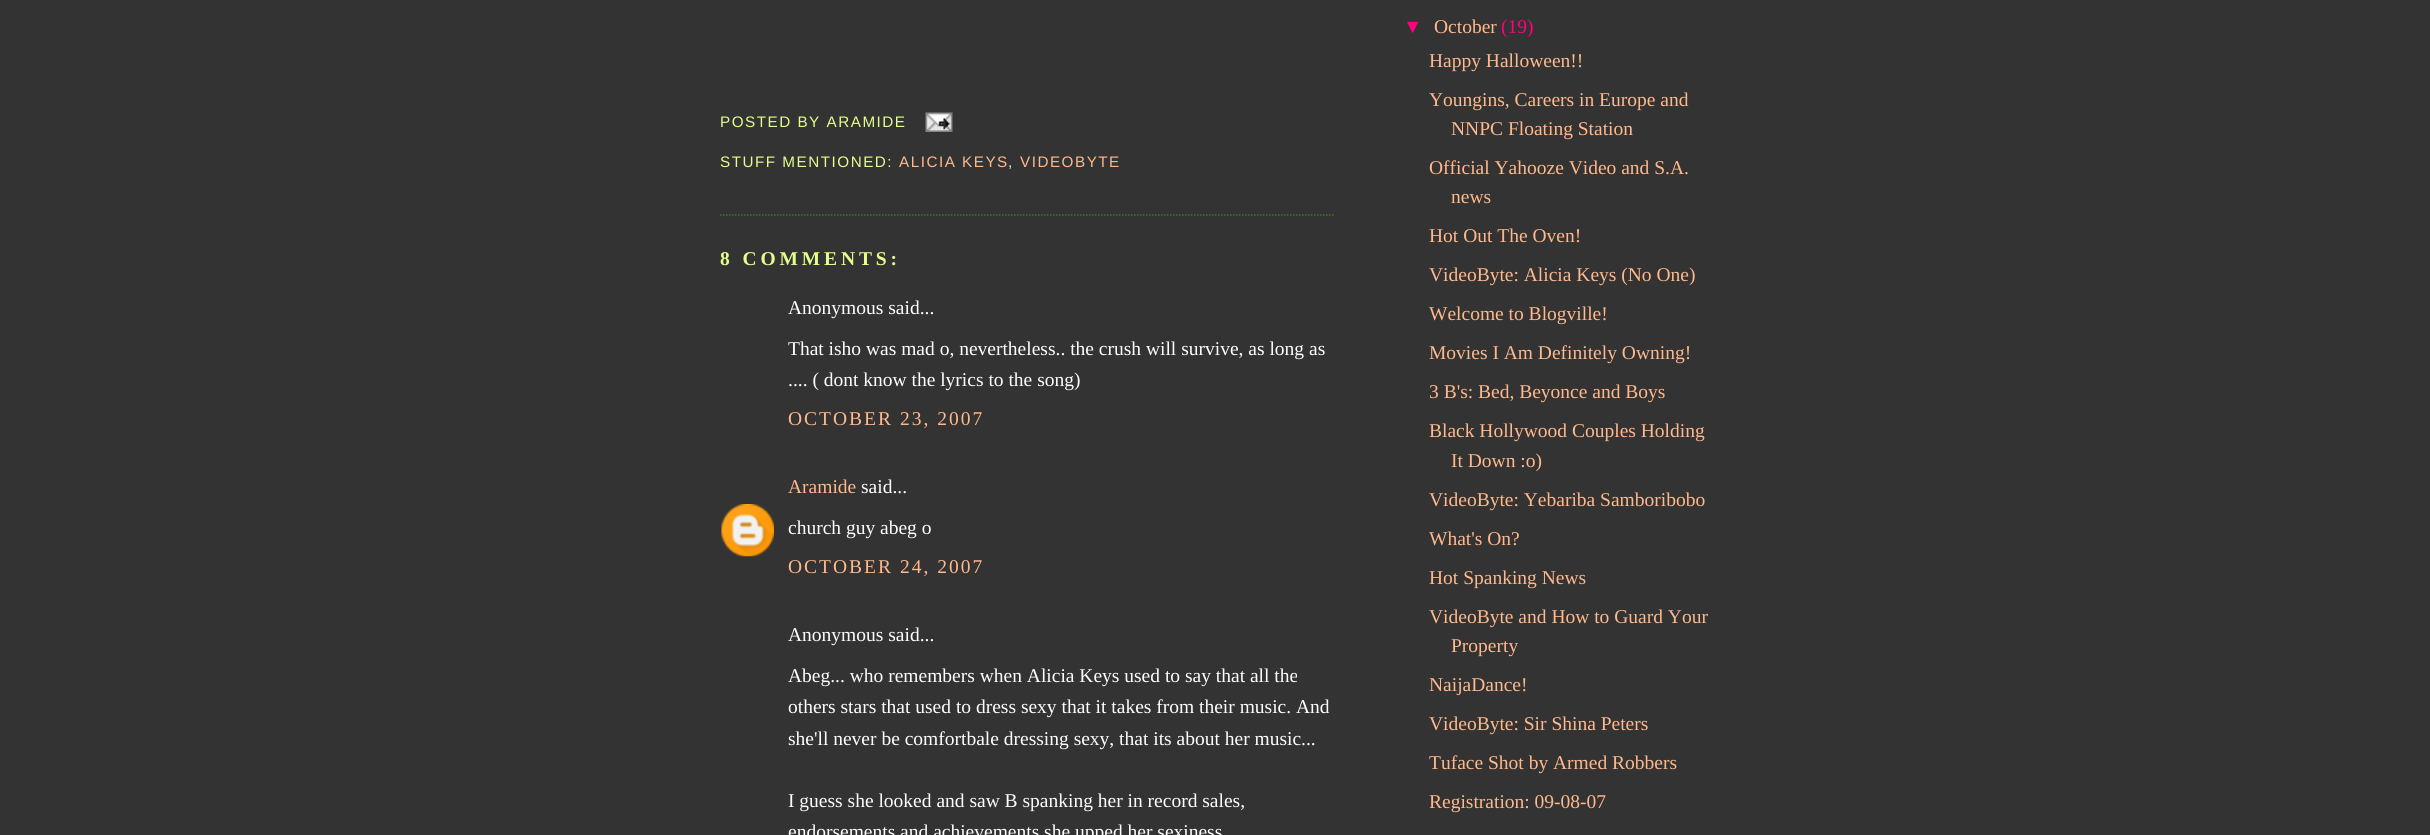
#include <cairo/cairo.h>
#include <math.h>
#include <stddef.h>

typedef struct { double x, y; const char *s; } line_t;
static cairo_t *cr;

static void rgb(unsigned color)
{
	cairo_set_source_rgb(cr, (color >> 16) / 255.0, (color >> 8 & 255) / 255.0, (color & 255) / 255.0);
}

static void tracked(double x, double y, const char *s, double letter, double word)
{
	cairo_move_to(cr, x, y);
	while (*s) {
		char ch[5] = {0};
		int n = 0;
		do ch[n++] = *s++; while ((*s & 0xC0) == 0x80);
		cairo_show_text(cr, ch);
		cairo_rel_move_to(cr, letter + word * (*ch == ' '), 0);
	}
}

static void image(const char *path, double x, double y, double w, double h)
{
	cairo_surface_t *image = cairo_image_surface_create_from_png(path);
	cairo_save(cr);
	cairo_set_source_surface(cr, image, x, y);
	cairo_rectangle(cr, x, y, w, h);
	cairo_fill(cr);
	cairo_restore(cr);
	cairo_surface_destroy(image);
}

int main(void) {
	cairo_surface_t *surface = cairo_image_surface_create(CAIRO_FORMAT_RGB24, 2430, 835);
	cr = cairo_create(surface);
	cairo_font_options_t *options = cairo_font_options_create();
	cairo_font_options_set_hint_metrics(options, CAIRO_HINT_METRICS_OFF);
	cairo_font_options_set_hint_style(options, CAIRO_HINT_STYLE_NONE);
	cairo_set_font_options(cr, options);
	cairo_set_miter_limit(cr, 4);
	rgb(0x333333);
	cairo_paint(cr);
	cairo_new_path(cr);
	cairo_move_to(cr, 720, 215);
	cairo_line_to(cr, 1335, 215);
	rgb(0x348017);
	cairo_set_line_width(cr, 1.5);
	cairo_set_dash(cr, (double[]){1.5, 1.5}, 2, 0);
	cairo_stroke(cr);
	image("img/1.png", 925, 112, 28, 20);
	image("img/2.png", 721, 504, 53, 53);
	cairo_select_font_face(cr, "Liberation Sans", CAIRO_FONT_SLANT_NORMAL, CAIRO_FONT_WEIGHT_NORMAL);
	cairo_set_font_size(cr, 15.25);
	rgb(0xe2ff8c);
	tracked(720, 127, "POSTED BY ARAMIDE", 1.5, 0);
	tracked(720, 167, "STUFF MENTIONED:", 1.5, 0);
	rgb(0xffb98c);
	tracked(899, 167, "ALICIA KEYS", 1.5, 0);
	rgb(0xe2ff8c);
	tracked(1008, 167, ",", 1.5, 0);
	rgb(0xffb98c);
	tracked(1020, 167, "VIDEOBYTE", 1.5, 0);
	cairo_select_font_face(cr, "Liberation Serif", CAIRO_FONT_SLANT_NORMAL, CAIRO_FONT_WEIGHT_BOLD);
	cairo_set_font_size(cr, 19.5);
	rgb(0xe2ff8c);
	tracked(720, 265, "8 COMMENTS:", 3.9, 0);
	cairo_select_font_face(cr, "Liberation Serif", CAIRO_FONT_SLANT_NORMAL, CAIRO_FONT_WEIGHT_NORMAL);
	rgb(0xffffff);
	{
		static const line_t items[] = {
			{788, 314, "Anonymous said..."},
			{788, 355, "That isho was mad o, nevertheless.. the crush will survive, as long as"},
			{788, 386, ".... ( dont know the lyrics to the song)"},
		};
		for (size_t i = 0; i < sizeof items / sizeof *items; i++) {
			cairo_move_to(cr, items[i].x, items[i].y);
			cairo_show_text(cr, items[i].s);
		}
	}
	rgb(0xffb98c);
	tracked(788, 425, "OCTOBER 23, 2007", 2, 0);
	cairo_move_to(cr, 788, 493);
	cairo_show_text(cr, "Aramide");
	rgb(0xffffff);
	cairo_move_to(cr, 861, 493);
	cairo_show_text(cr, "said...");
	cairo_move_to(cr, 788, 534);
	cairo_show_text(cr, "church guy abeg o");
	rgb(0xffb98c);
	tracked(788, 573, "OCTOBER 24, 2007", 2, 0);
	rgb(0xffffff);
	{
		static const line_t items[] = {
			{788, 641, "Anonymous said..."},
			{788, 682, "Abeg... who remembers when Alicia Keys used to say that all the"},
			{788, 713, "others stars that used to dress sexy that it takes from their music. And"},
			{788, 745, "she'll never be comfortbale dressing sexy, that its about her music..."},
			{788, 807, "I guess she looked and saw B spanking her in record sales,"},
			{788, 838, "endorsements and achievements she upped her sexiness"},
		};
		for (size_t i = 0; i < sizeof items / sizeof *items; i++) {
			cairo_move_to(cr, items[i].x, items[i].y);
			cairo_show_text(cr, items[i].s);
		}
	}
	cairo_select_font_face(cr, "Liberation Sans", CAIRO_FONT_SLANT_NORMAL, CAIRO_FONT_WEIGHT_NORMAL);
	rgb(0xff0080);
	cairo_move_to(cr, 1403, 33);
	cairo_show_text(cr, "▼");
	cairo_select_font_face(cr, "Liberation Serif", CAIRO_FONT_SLANT_NORMAL, CAIRO_FONT_WEIGHT_NORMAL);
	rgb(0xffb98c);
	cairo_move_to(cr, 1434, 33);
	cairo_show_text(cr, "October");
	rgb(0xff0080);
	cairo_move_to(cr, 1501, 33);
	cairo_show_text(cr, "(19)");
	rgb(0xffb98c);
	{
		static const line_t items[] = {
			{1429, 67, "Happy Halloween!!"},
			{1429, 106, "Youngins, Careers in Europe and"},
			{1451, 135, "NNPC Floating Station"},
			{1429, 174, "Official Yahooze Video and S.A."},
			{1451, 203, "news"},
			{1429, 242, "Hot Out The Oven!"},
			{1429, 281, "VideoByte: Alicia Keys (No One)"},
			{1429, 320, "Welcome to Blogville!"},
			{1429, 359, "Movies I Am Definitely Owning!"},
			{1429, 398, "3 B's: Bed, Beyonce and Boys"},
			{1429, 437, "Black Hollywood Couples Holding"},
			{1451, 467, "It Down :o)"},
			{1429, 506, "VideoByte: Yebariba Samboribobo"},
			{1429, 545, "What's On?"},
			{1429, 584, "Hot Spanking News"},
			{1429, 623, "VideoByte and How to Guard Your"},
			{1451, 652, "Property"},
			{1429, 691, "NaijaDance!"},
			{1429, 730, "VideoByte: Sir Shina Peters"},
			{1429, 769, "Tuface Shot by Armed Robbers"},
			{1429, 808, "Registration: 09-08-07"},
		};
		for (size_t i = 0; i < sizeof items / sizeof *items; i++) {
			cairo_move_to(cr, items[i].x, items[i].y);
			cairo_show_text(cr, items[i].s);
		}
	}
	cairo_surface_write_to_png(surface, "page.png");
	cairo_font_options_destroy(options);
	cairo_destroy(cr);
	cairo_surface_destroy(surface);
	return 0;
}
